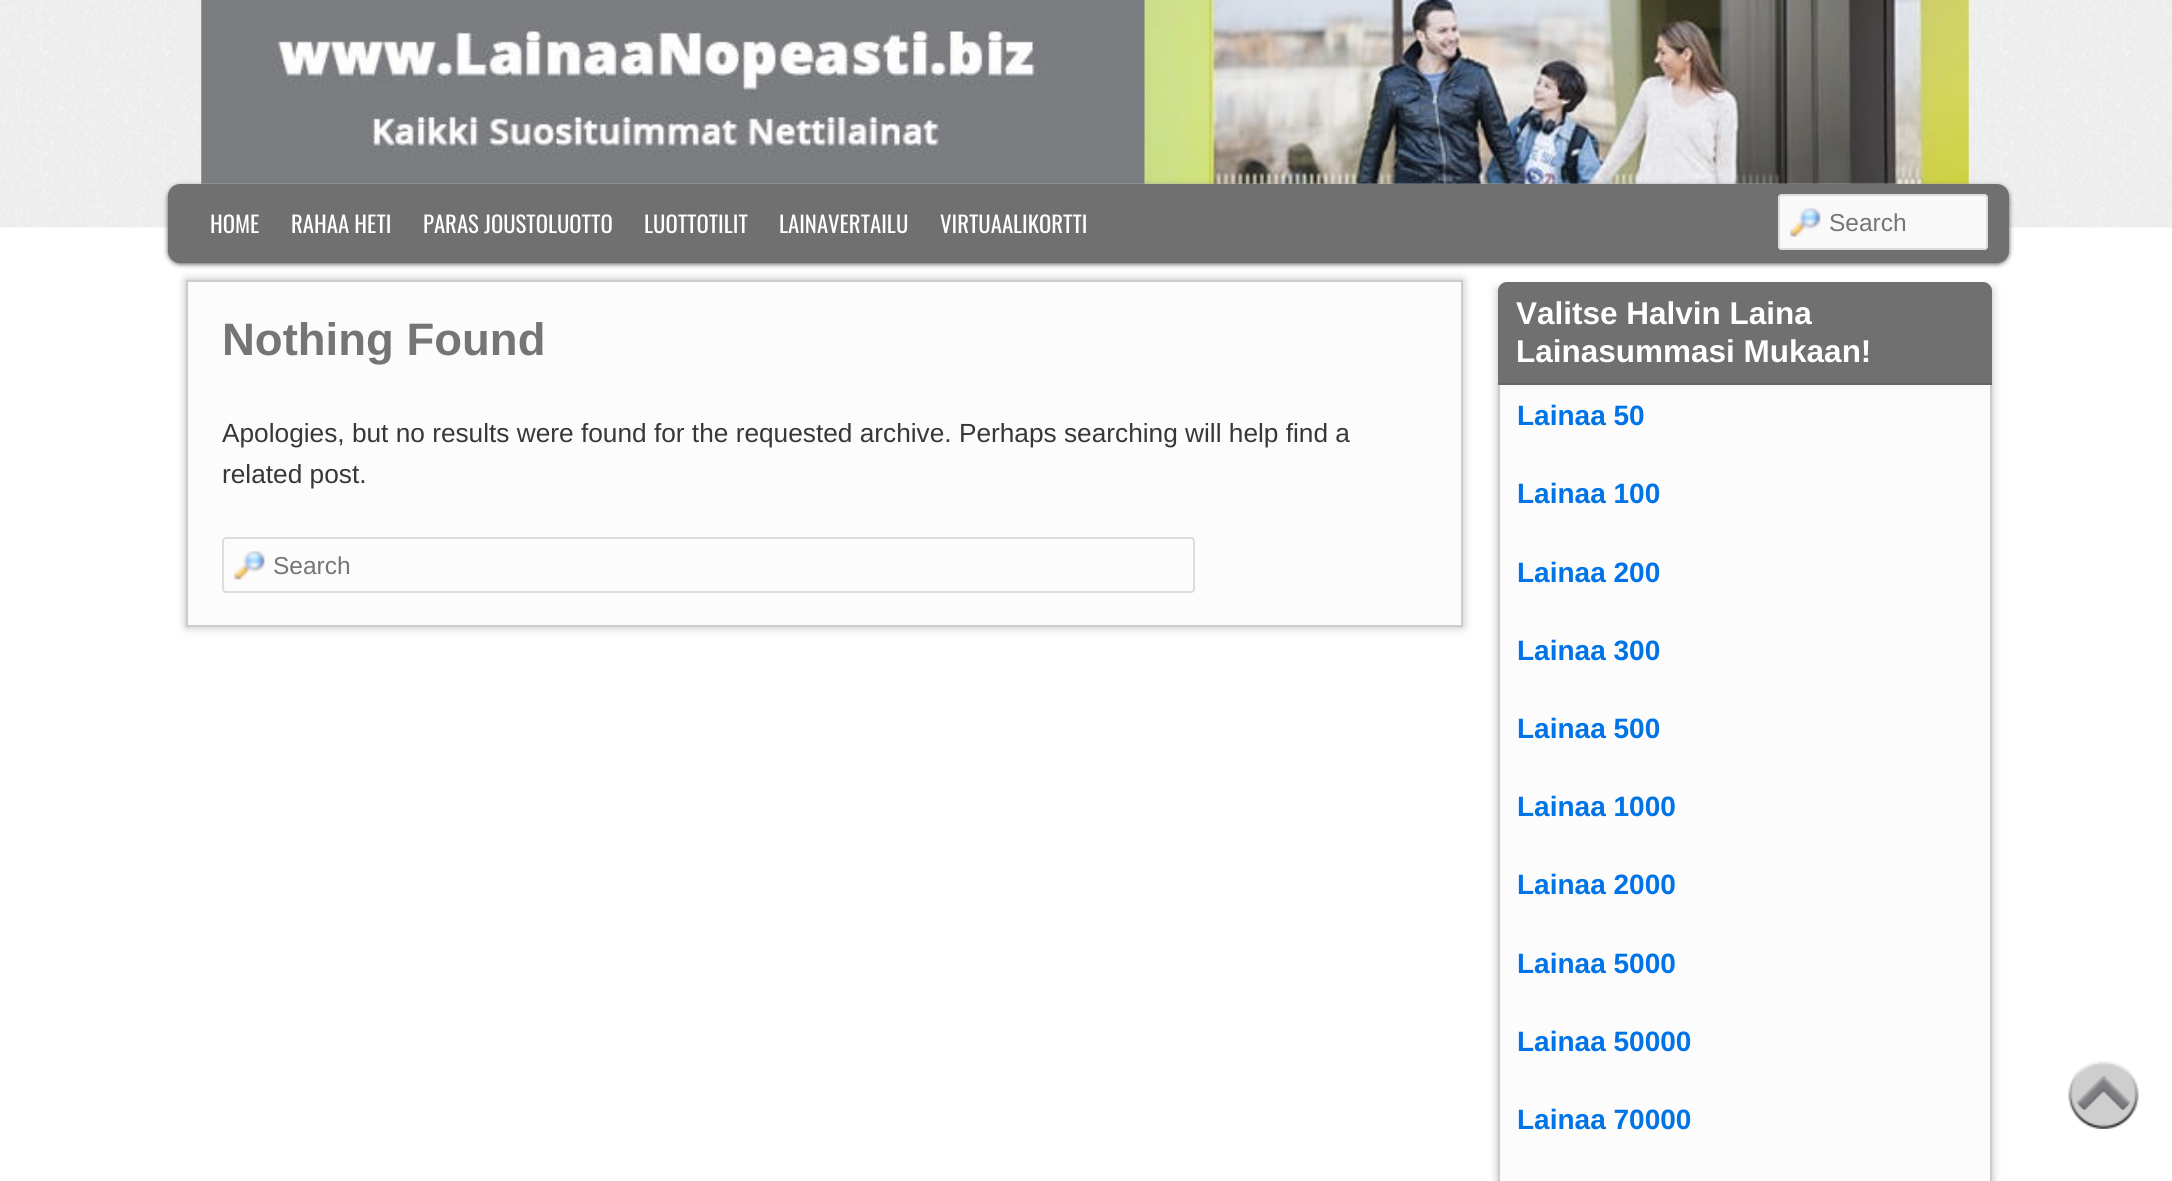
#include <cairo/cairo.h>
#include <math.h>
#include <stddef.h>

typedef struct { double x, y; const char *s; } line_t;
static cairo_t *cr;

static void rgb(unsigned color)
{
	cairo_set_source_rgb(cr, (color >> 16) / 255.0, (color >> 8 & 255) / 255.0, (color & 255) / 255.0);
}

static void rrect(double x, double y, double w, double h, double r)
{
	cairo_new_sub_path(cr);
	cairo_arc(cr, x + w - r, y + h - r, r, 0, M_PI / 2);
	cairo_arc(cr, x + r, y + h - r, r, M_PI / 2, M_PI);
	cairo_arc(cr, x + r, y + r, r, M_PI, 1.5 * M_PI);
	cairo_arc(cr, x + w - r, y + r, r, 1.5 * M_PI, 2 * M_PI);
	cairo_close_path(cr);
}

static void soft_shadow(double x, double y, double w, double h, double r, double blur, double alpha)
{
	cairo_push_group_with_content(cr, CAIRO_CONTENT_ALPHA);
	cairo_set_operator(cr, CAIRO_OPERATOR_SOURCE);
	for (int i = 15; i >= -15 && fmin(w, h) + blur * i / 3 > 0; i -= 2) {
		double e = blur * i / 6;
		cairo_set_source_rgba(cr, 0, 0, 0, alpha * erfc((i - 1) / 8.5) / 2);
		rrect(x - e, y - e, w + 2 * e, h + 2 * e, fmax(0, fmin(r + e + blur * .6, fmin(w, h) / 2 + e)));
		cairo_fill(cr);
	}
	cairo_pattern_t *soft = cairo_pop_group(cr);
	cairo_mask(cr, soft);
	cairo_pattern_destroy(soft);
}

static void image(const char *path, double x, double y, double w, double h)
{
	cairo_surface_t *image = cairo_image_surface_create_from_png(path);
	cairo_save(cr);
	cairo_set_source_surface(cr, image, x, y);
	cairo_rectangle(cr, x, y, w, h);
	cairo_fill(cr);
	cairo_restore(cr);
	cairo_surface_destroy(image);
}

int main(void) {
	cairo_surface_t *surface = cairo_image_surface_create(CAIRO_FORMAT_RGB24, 2172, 1181);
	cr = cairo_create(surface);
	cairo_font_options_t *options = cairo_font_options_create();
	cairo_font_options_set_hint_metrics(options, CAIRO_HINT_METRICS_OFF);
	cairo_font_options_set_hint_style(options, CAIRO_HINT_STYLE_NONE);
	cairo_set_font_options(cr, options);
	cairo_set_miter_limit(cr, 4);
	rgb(0xffffff);
	cairo_paint(cr);
	image("img/1.png", 0, 0, 2172, 228);
	image("img/2.png", 201, 0, 1768, 184);
	rgb(0x555555);
	soft_shadow(168, 186, 1841, 78, 12, 2.5, 1);
	rgb(0x707070);
	rrect(169, 185, 1839, 77, 11);
	cairo_fill_preserve(cr);
	cairo_stroke(cr);
	rgb(0xf9f9f9);
	rrect(1778, 194, 210, 56, 4);
	cairo_fill(cr);
	image("img/3.png", 1789, 208, 32, 29);
	rrect(1779, 195, 208, 54, 3);
	rgb(0xdddddd);
	cairo_stroke(cr);
	rgb(0xbbbbbb);
	soft_shadow(186, 280, 1277, 347, 0, 4.5, 1);
	rgb(0xfcfcfc);
	cairo_rectangle(cr, 187, 281, 1275, 345);
	cairo_fill_preserve(cr);
	rgb(0xcccccc);
	cairo_stroke(cr);
	image("img/4.png", 234, 551, 31, 29);
	rrect(223, 538, 971, 54, 3);
	rgb(0xdddddd);
	cairo_stroke(cr);
	rgb(0xbbbbbb);
	soft_shadow(1498, 289, 494, 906, 0, 4.5, 1);
	rgb(0xfcfcfc);
	cairo_rectangle(cr, 1500, 385, 490, 796);
	cairo_fill(cr);
	cairo_rectangle(cr, 1499, 290, 492, 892);
	rgb(0xcccccc);
	cairo_stroke(cr);
	rgb(0x707070);
	cairo_new_path(cr);
	cairo_move_to(cr, 1507, 282);
	cairo_line_to(cr, 1983, 282);
	cairo_curve_to(cr, 1988, 282, 1992, 286, 1992, 291);
	cairo_line_to(cr, 1992, 385);
	cairo_line_to(cr, 1498, 385);
	cairo_line_to(cr, 1498, 291);
	cairo_curve_to(cr, 1498, 286, 1502, 282, 1507, 282);
	cairo_close_path(cr);
	cairo_fill(cr);
	rgb(0x66686e);
	cairo_rectangle(cr, 1498, 383, 494, 2);
	cairo_fill(cr);
	image("img/5.png", 2068, 1060, 71, 69);
	cairo_select_font_face(cr, "Oswald", CAIRO_FONT_SLANT_NORMAL, CAIRO_FONT_WEIGHT_NORMAL);
	cairo_set_font_size(cr, 22.75);
	rgb(0xffffff);
	{
		static const line_t items[] = {
			{210, 233, "HOME"},
			{291, 233, "RAHAA HETI"},
			{423, 233, "PARAS JOUSTOLUOTTO"},
			{644, 233, "LUOTTOTILIT"},
			{779, 233, "LAINAVERTAILU"},
			{940, 233, "VIRTUAALIKORTTI"},
		};
		for (size_t i = 0; i < sizeof items / sizeof *items; i++) {
			cairo_move_to(cr, items[i].x, items[i].y);
			cairo_show_text(cr, items[i].s);
		}
	}
	cairo_select_font_face(cr, "Liberation Sans", CAIRO_FONT_SLANT_NORMAL, CAIRO_FONT_WEIGHT_NORMAL);
	cairo_set_font_size(cr, 24.5);
	rgb(0x757575);
	cairo_move_to(cr, 1829, 231);
	cairo_show_text(cr, "Search");
	cairo_select_font_face(cr, "Liberation Sans", CAIRO_FONT_SLANT_NORMAL, CAIRO_FONT_WEIGHT_BOLD);
	cairo_set_font_size(cr, 45.5);
	cairo_move_to(cr, 222, 355);
	cairo_show_text(cr, "Nothing Found");
	cairo_select_font_face(cr, "Liberation Sans", CAIRO_FONT_SLANT_NORMAL, CAIRO_FONT_WEIGHT_NORMAL);
	cairo_set_font_size(cr, 26.25);
	rgb(0x373737);
	cairo_move_to(cr, 222, 442);
	cairo_show_text(cr, "Apologies, but no results were found for the requested archive. Perhaps searching will help find a");
	cairo_move_to(cr, 222, 483);
	cairo_show_text(cr, "related post.");
	cairo_set_font_size(cr, 24.5);
	rgb(0x757575);
	cairo_move_to(cr, 273, 574);
	cairo_show_text(cr, "Search");
	cairo_select_font_face(cr, "Liberation Sans", CAIRO_FONT_SLANT_NORMAL, CAIRO_FONT_WEIGHT_BOLD);
	cairo_set_font_size(cr, 31.5);
	rgb(0xffffff);
	cairo_move_to(cr, 1516, 324);
	cairo_show_text(cr, "Valitse Halvin Laina");
	cairo_move_to(cr, 1516, 362);
	cairo_show_text(cr, "Lainasummasi Mukaan!");
	cairo_set_font_size(cr, 28);
	rgb(0x0073e6);
	{
		static const line_t items[] = {
			{1517, 425, "Lainaa 50"},
			{1517, 503, "Lainaa 100"},
			{1517, 582, "Lainaa 200"},
			{1517, 660, "Lainaa 300"},
			{1517, 738, "Lainaa 500"},
			{1517, 816, "Lainaa 1000"},
			{1517, 894, "Lainaa 2000"},
			{1517, 973, "Lainaa 5000"},
			{1517, 1051, "Lainaa 50000"},
			{1517, 1129, "Lainaa 70000"},
		};
		for (size_t i = 0; i < sizeof items / sizeof *items; i++) {
			cairo_move_to(cr, items[i].x, items[i].y);
			cairo_show_text(cr, items[i].s);
		}
	}
	cairo_surface_write_to_png(surface, "page.png");
	cairo_font_options_destroy(options);
	cairo_destroy(cr);
	cairo_surface_destroy(surface);
	return 0;
}
